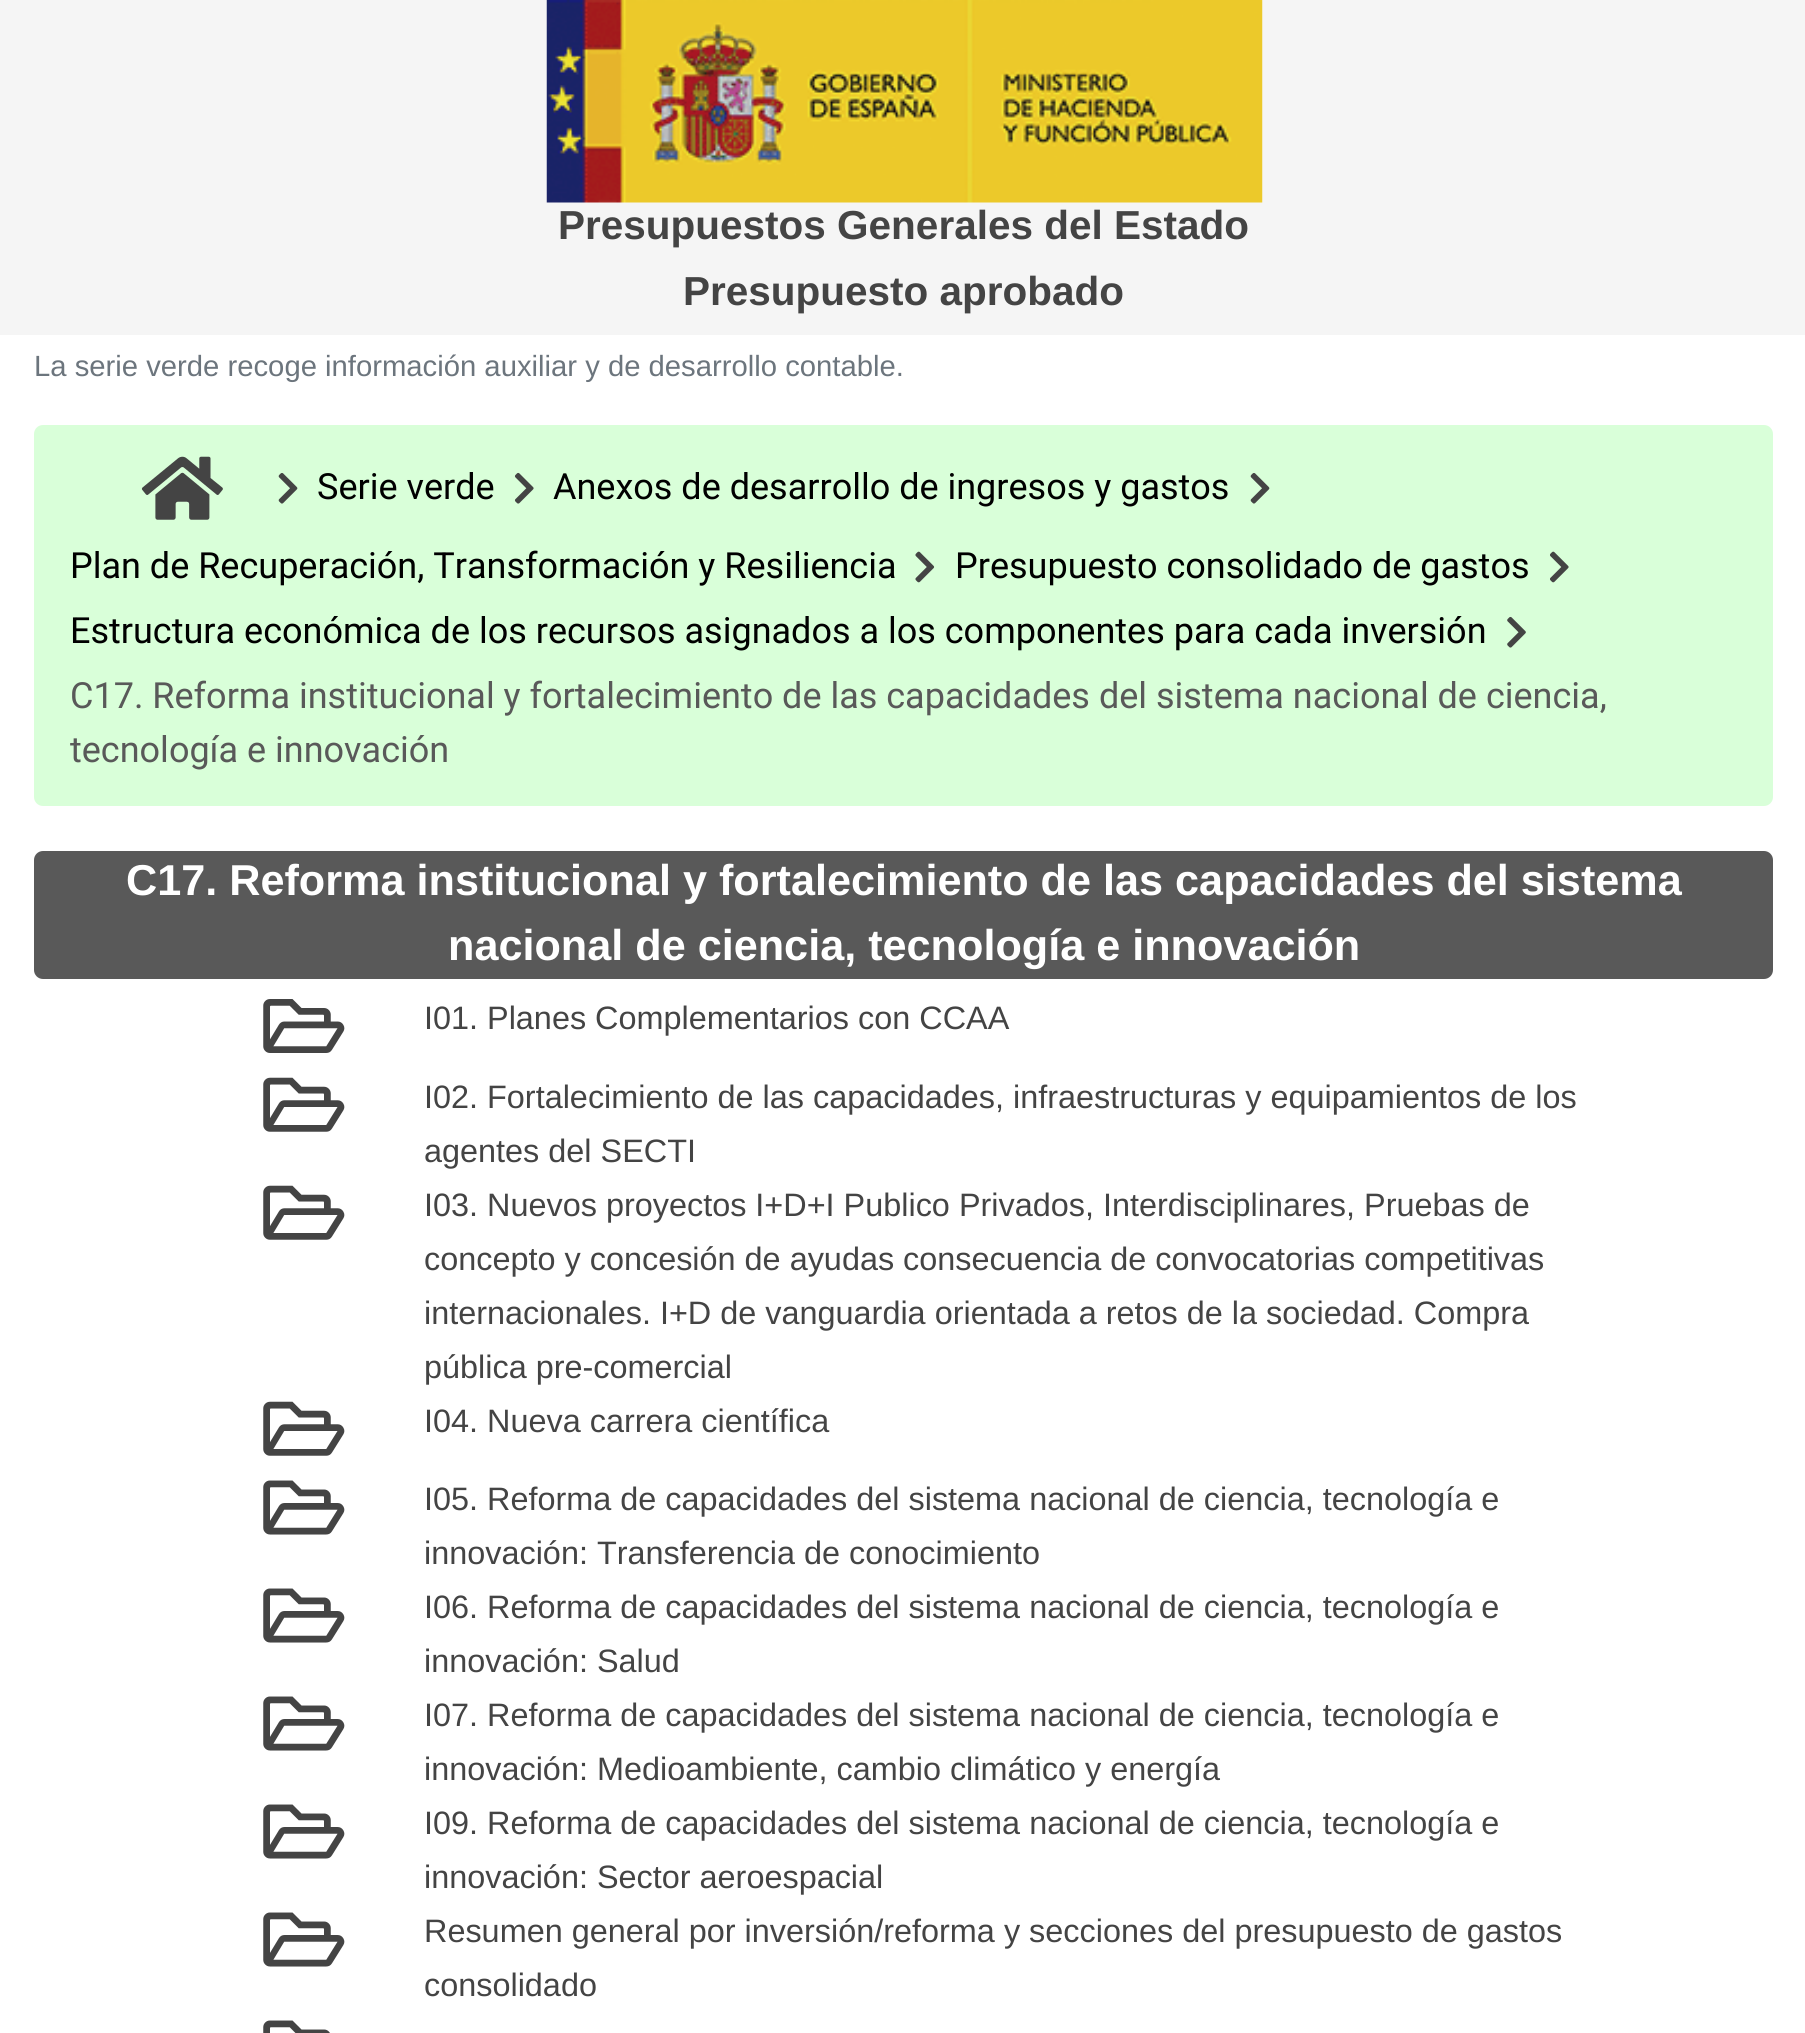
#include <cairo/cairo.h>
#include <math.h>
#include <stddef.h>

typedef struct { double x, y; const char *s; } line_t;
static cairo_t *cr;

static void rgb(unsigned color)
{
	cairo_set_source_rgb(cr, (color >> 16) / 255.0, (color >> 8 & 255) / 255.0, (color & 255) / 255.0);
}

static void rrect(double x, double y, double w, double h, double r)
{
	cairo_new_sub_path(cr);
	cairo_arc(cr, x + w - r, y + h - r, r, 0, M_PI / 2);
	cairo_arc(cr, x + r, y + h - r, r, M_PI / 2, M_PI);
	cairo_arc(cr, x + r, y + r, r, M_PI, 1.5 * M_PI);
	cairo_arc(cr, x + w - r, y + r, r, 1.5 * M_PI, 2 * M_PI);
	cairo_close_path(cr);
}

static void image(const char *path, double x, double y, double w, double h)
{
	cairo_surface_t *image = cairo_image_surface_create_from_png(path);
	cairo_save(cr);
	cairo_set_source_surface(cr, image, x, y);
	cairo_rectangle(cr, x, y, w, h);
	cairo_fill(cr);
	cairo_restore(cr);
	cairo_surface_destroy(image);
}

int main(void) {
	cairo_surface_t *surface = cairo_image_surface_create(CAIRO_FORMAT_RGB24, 1805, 2033);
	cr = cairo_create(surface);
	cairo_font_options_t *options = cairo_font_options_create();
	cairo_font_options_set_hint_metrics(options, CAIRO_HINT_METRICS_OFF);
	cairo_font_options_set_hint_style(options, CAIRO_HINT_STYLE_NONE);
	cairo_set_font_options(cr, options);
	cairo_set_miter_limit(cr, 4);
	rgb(0xffffff);
	cairo_paint(cr);
	rgb(0xf5f5f5);
	cairo_rectangle(cr, 0, 0, 1805, 335);
	cairo_fill(cr);
	image("img/1.png", 546, 0, 717, 203);
	rgb(0xd9ffd9);
	rrect(34, 425, 1739, 381, 9);
	cairo_fill(cr);
	image("img/2.png", 141, 456, 82, 64);
	image("img/3.png", 278, 473, 20, 31);
	image("img/4.png", 514, 472, 20, 32);
	image("img/3.png", 1250, 473, 20, 31);
	image("img/5.png", 915, 551, 20, 32);
	image("img/6.png", 1550, 551, 19, 32);
	image("img/7.png", 1507, 616, 19, 32);
	rgb(0x595959);
	rrect(34, 851, 1739, 128, 9);
	cairo_fill(cr);
	image("img/8.png", 263, 999, 82, 54);
	image("img/9.png", 263, 1077, 82, 55);
	image("img/9.png", 263, 1185, 82, 55);
	image("img/9.png", 263, 1401, 82, 55);
	image("img/10.png", 263, 1480, 82, 55);
	image("img/10.png", 263, 1588, 82, 55);
	image("img/10.png", 263, 1696, 82, 55);
	image("img/10.png", 263, 1804, 82, 55);
	image("img/10.png", 263, 1912, 82, 55);
	image("img/11.png", 263, 2020, 67, 13);
	cairo_select_font_face(cr, "Liberation Sans", CAIRO_FONT_SLANT_NORMAL, CAIRO_FONT_WEIGHT_BOLD);
	cairo_set_font_size(cr, 40.5);
	rgb(0x444444);
	cairo_move_to(cr, 558, 239);
	cairo_show_text(cr, "Presupuestos Generales del Estado");
	cairo_move_to(cr, 683, 305);
	cairo_show_text(cr, "Presupuesto aprobado");
	cairo_select_font_face(cr, "Liberation Sans", CAIRO_FONT_SLANT_NORMAL, CAIRO_FONT_WEIGHT_NORMAL);
	cairo_set_font_size(cr, 29.25);
	rgb(0x6c757d);
	cairo_move_to(cr, 34, 376);
	cairo_show_text(cr, "La serie verde recoge información auxiliar y de desarrollo contable.");
	cairo_select_font_face(cr, "Roboto", CAIRO_FONT_SLANT_NORMAL, CAIRO_FONT_WEIGHT_NORMAL);
	cairo_set_font_size(cr, 36);
	rgb(0x000000);
	{
		static const line_t items[] = {
			{317, 499, "Serie verde"},
			{553, 499, "Anexos de desarrollo de ingresos y gastos"},
			{70, 578, "Plan de Recuperación, Transformación y Resiliencia"},
			{955, 578, "Presupuesto consolidado de gastos"},
			{70, 643, "Estructura económica de los recursos asignados a los componentes para cada inversión"},
		};
		for (size_t i = 0; i < sizeof items / sizeof *items; i++) {
			cairo_move_to(cr, items[i].x, items[i].y);
			cairo_show_text(cr, items[i].s);
		}
	}
	rgb(0x595959);
	cairo_move_to(cr, 70, 708);
	cairo_show_text(cr, "C17. Reforma institucional y fortalecimiento de las capacidades del sistema nacional de ciencia,");
	cairo_move_to(cr, 70, 762);
	cairo_show_text(cr, "tecnología e innovación");
	cairo_select_font_face(cr, "Liberation Sans", CAIRO_FONT_SLANT_NORMAL, CAIRO_FONT_WEIGHT_BOLD);
	cairo_set_font_size(cr, 43.2);
	rgb(0xffffff);
	cairo_move_to(cr, 126, 895);
	cairo_show_text(cr, "C17. Reforma institucional y fortalecimiento de las capacidades del sistema");
	cairo_move_to(cr, 448, 960);
	cairo_show_text(cr, "nacional de ciencia, tecnología e innovación");
	cairo_select_font_face(cr, "Liberation Sans", CAIRO_FONT_SLANT_NORMAL, CAIRO_FONT_WEIGHT_NORMAL);
	cairo_set_font_size(cr, 32.4);
	rgb(0x444444);
	{
		static const line_t items[] = {
			{424, 1029, "I01. Planes Complementarios con CCAA"},
			{424, 1108, "I02. Fortalecimiento de las capacidades, infraestructuras y equipamientos de los"},
			{424, 1162, "agentes del SECTI"},
			{424, 1216, "I03. Nuevos proyectos I+D+I Publico Privados, Interdisciplinares, Pruebas de"},
			{424, 1270, "concepto y concesión de ayudas consecuencia de convocatorias competitivas"},
			{424, 1324, "internacionales. I+D de vanguardia orientada a retos de la sociedad. Compra"},
			{424, 1378, "pública pre-comercial"},
			{424, 1432, "I04. Nueva carrera científica"},
			{424, 1510, "I05. Reforma de capacidades del sistema nacional de ciencia, tecnología e"},
			{424, 1564, "innovación: Transferencia de conocimiento"},
			{424, 1618, "I06. Reforma de capacidades del sistema nacional de ciencia, tecnología e"},
			{424, 1672, "innovación: Salud"},
			{424, 1726, "I07. Reforma de capacidades del sistema nacional de ciencia, tecnología e"},
			{424, 1780, "innovación: Medioambiente, cambio climático y energía"},
			{424, 1834, "I09. Reforma de capacidades del sistema nacional de ciencia, tecnología e"},
			{424, 1888, "innovación: Sector aeroespacial"},
			{424, 1942, "Resumen general por inversión/reforma y secciones del presupuesto de gastos"},
			{424, 1996, "consolidado"},
		};
		for (size_t i = 0; i < sizeof items / sizeof *items; i++) {
			cairo_move_to(cr, items[i].x, items[i].y);
			cairo_show_text(cr, items[i].s);
		}
	}
	cairo_surface_write_to_png(surface, "page.png");
	cairo_font_options_destroy(options);
	cairo_destroy(cr);
	cairo_surface_destroy(surface);
	return 0;
}
